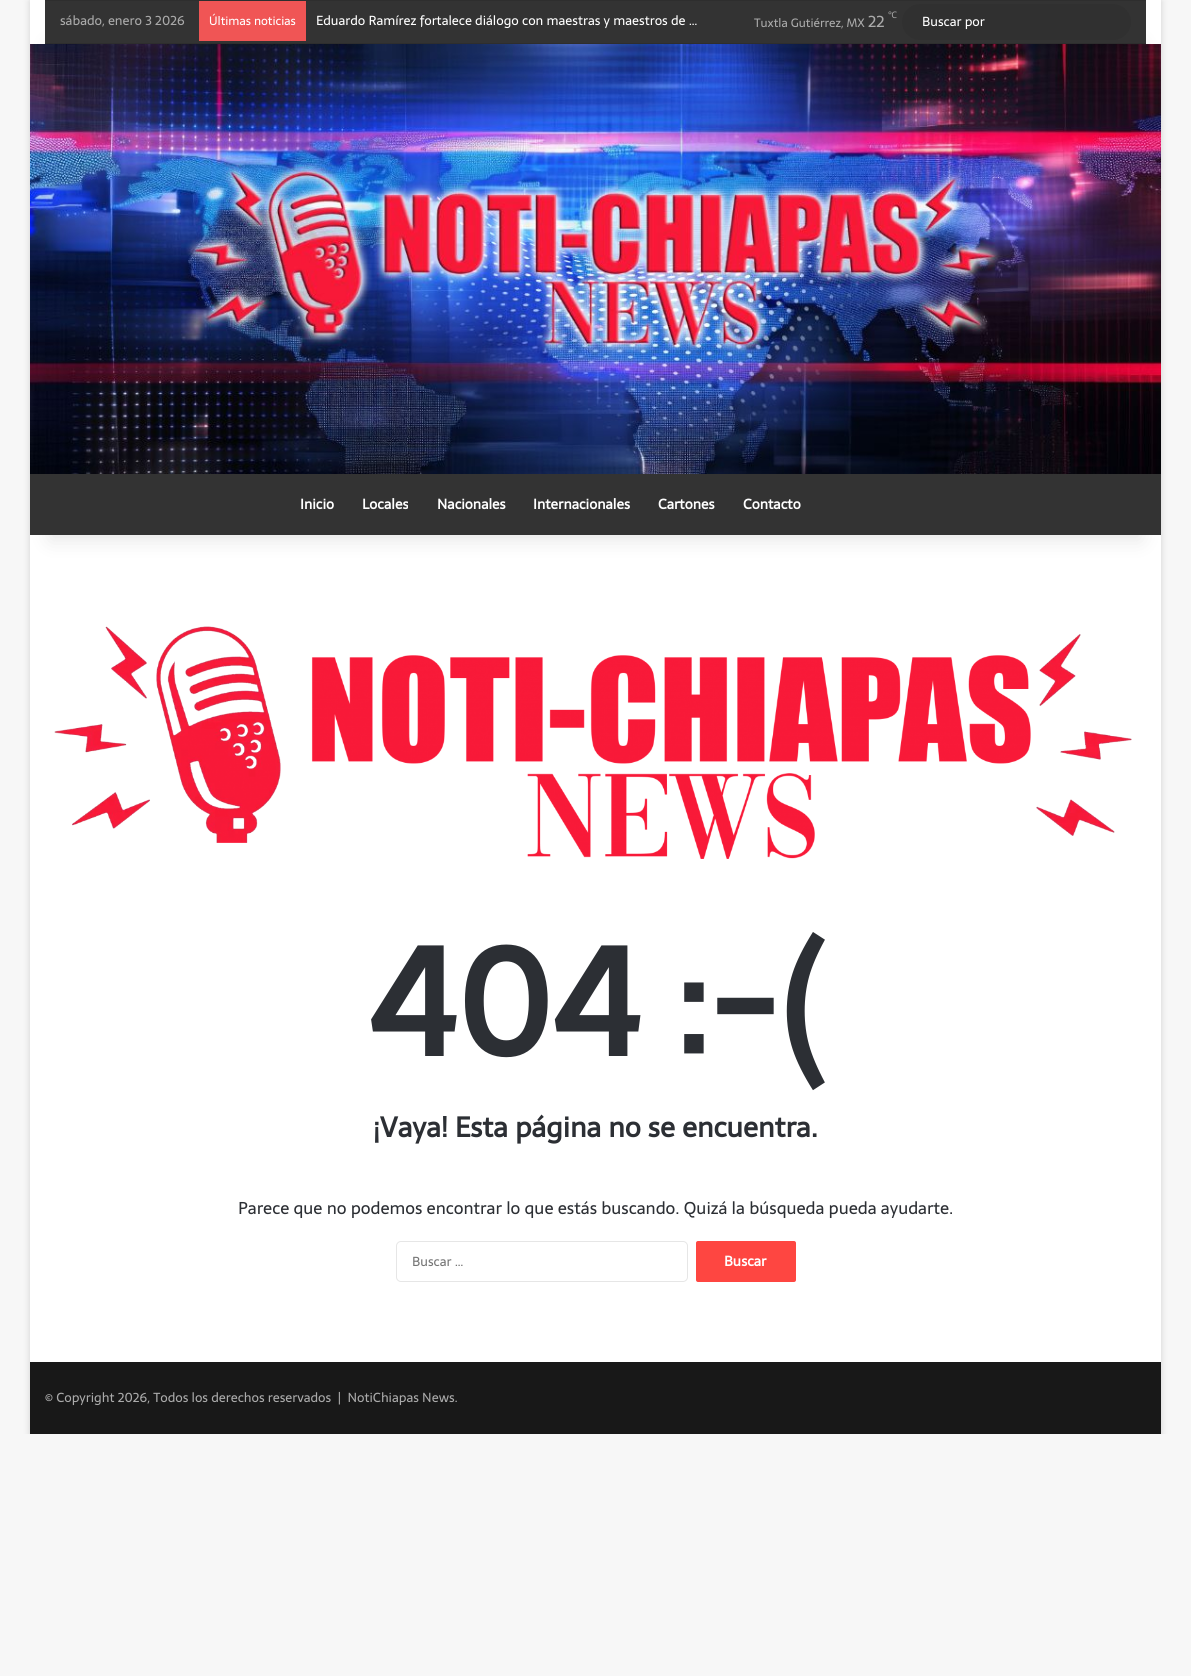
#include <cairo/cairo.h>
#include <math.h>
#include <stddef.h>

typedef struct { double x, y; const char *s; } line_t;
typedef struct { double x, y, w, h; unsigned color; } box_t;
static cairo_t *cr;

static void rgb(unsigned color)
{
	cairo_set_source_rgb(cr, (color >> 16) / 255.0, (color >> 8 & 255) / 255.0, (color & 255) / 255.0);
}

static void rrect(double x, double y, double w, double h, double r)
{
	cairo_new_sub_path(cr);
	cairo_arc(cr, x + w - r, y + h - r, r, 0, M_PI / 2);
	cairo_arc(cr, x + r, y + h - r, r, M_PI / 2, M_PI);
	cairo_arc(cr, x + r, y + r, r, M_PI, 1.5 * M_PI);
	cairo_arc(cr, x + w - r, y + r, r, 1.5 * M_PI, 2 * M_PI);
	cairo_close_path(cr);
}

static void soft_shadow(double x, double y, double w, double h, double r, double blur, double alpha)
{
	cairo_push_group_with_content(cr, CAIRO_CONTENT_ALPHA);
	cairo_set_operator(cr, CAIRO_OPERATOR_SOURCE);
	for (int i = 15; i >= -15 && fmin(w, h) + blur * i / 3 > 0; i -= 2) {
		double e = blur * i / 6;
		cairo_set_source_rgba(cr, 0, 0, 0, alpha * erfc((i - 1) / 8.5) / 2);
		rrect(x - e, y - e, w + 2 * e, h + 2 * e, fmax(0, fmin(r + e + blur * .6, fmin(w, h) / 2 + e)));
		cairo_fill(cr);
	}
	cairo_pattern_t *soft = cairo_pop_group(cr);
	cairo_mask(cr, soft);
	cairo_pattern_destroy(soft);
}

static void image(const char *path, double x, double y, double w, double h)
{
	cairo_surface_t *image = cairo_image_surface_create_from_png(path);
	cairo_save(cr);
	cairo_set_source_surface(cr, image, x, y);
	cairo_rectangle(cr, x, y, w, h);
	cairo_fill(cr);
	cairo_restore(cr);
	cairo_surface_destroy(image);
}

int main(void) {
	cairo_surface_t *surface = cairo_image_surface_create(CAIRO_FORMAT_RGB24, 1191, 1676);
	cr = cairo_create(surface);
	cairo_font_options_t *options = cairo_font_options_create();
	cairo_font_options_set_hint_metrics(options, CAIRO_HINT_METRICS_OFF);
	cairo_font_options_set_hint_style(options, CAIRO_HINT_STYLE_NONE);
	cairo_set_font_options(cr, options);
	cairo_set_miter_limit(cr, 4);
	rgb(0xf7f7f7);
	cairo_paint(cr);
	cairo_save(cr);
	cairo_rectangle(cr, 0, 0, 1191, 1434);
	cairo_clip(cr);
	rgb(0xababab);
	soft_shadow(30, 1, 1131, 1434, 0, 3.5, 0.5);
	cairo_restore(cr);
	rgb(0xffffff);
	cairo_rectangle(cr, 30, 0, 1131, 1362);
	cairo_fill(cr);
	rgb(0x000000);
	soft_shadow(50, 45, 1091, 495, 0, 10, 0.1);
	{
		static const box_t items[] = {
			{45, 1, 1101, 42, 0x333333},
			{45, 0, 1101, 1, 0x2e2e2e},
			{45, 43, 1101, 1, 0x2e2e2e},
			{199, 1, 107, 40, 0xf05555},
		};
		for (size_t i = 0; i < sizeof items / sizeof *items; i++) {
			rgb(items[i].color);
			cairo_rectangle(cr, items[i].x, items[i].y, items[i].w, items[i].h);
			cairo_fill(cr);
		}
	}
	rgb(0x303030);
	rrect(902, 4, 229, 36, 18);
	cairo_fill(cr);
	image("img/1.png", 30, 44, 1131, 430);
	rgb(0x333333);
	cairo_rectangle(cr, 30, 474, 1131, 61);
	cairo_fill(cr);
	image("img/2.png", 54, 626, 1078, 233);
	rrect(396.5, 1241.5, 291, 40, 4.5);
	rgb(0xe6e6e6);
	cairo_set_line_width(cr, 1);
	cairo_stroke(cr);
	rgb(0xfe4641);
	rrect(696, 1241, 100, 41, 2);
	cairo_fill(cr);
	rgb(0x181818);
	cairo_rectangle(cr, 30, 1362, 1131, 72);
	cairo_fill(cr);
	cairo_select_font_face(cr, "Sarala", CAIRO_FONT_SLANT_NORMAL, CAIRO_FONT_WEIGHT_NORMAL);
	cairo_set_font_size(cr, 13);
	rgb(0xaaaaaa);
	cairo_move_to(cr, 60, 25);
	cairo_show_text(cr, "sábado, enero 3 2026");
	cairo_set_font_size(cr, 12);
	rgb(0xffffff);
	cairo_move_to(cr, 209, 25);
	cairo_show_text(cr, "Últimas noticias");
	cairo_set_font_size(cr, 13);
	cairo_move_to(cr, 316, 25);
	cairo_show_text(cr, "Eduardo Ramírez fortalece diálogo con maestras y maestros de …");
	cairo_set_font_size(cr, 12);
	rgb(0xaaaaaa);
	cairo_move_to(cr, 754, 27);
	cairo_show_text(cr, "Tuxtla Gutiérrez, MX");
	cairo_set_font_size(cr, 16);
	cairo_move_to(cr, 868, 27);
	cairo_show_text(cr, "22");
	cairo_select_font_face(cr, "Noto Sans", CAIRO_FONT_SLANT_NORMAL, CAIRO_FONT_WEIGHT_NORMAL);
	cairo_set_font_size(cr, 9);
	cairo_move_to(cr, 888, 18);
	cairo_show_text(cr, "℃");
	cairo_select_font_face(cr, "Sarala", CAIRO_FONT_SLANT_NORMAL, CAIRO_FONT_WEIGHT_NORMAL);
	cairo_set_font_size(cr, 13);
	rgb(0xffffff);
	cairo_move_to(cr, 922, 26);
	cairo_show_text(cr, "Buscar por");
	cairo_select_font_face(cr, "Sarala", CAIRO_FONT_SLANT_NORMAL, CAIRO_FONT_WEIGHT_BOLD);
	cairo_set_font_size(cr, 14);
	{
		static const line_t items[] = {
			{300, 509, "Inicio"},
			{362, 509, "Locales"},
			{437, 509, "Nacionales"},
			{533, 509, "Internacionales"},
			{658, 509, "Cartones"},
			{743, 509, "Contacto"},
		};
		for (size_t i = 0; i < sizeof items / sizeof *items; i++) {
			cairo_move_to(cr, items[i].x, items[i].y);
			cairo_show_text(cr, items[i].s);
		}
	}
	cairo_set_font_size(cr, 150);
	rgb(0x2c2f34);
	cairo_move_to(cr, 368, 1056);
	cairo_show_text(cr, "404 :-(");
	cairo_set_font_size(cr, 28);
	cairo_move_to(cr, 373, 1137);
	cairo_show_text(cr, "¡Vaya! Esta página no se encuentra.");
	cairo_select_font_face(cr, "Sarala", CAIRO_FONT_SLANT_NORMAL, CAIRO_FONT_WEIGHT_NORMAL);
	cairo_set_font_size(cr, 17);
	cairo_move_to(cr, 238, 1214);
	cairo_show_text(cr, "Parece que no podemos encontrar lo que estás buscando. Quizá la búsqueda pueda ayudarte.");
	cairo_set_font_size(cr, 13);
	rgb(0x757575);
	cairo_move_to(cr, 412, 1266);
	cairo_show_text(cr, "Buscar …");
	cairo_select_font_face(cr, "Sarala", CAIRO_FONT_SLANT_NORMAL, CAIRO_FONT_WEIGHT_BOLD);
	cairo_set_font_size(cr, 14);
	rgb(0xffffff);
	cairo_move_to(cr, 724, 1266);
	cairo_show_text(cr, "Buscar");
	cairo_select_font_face(cr, "Sarala", CAIRO_FONT_SLANT_NORMAL, CAIRO_FONT_WEIGHT_NORMAL);
	cairo_set_font_size(cr, 13);
	rgb(0xaaaaaa);
	cairo_move_to(cr, 45, 1402);
	cairo_show_text(cr, "© Copyright 2026, Todos los derechos reservados  |  NotiChiapas News.");
	cairo_surface_write_to_png(surface, "page.png");
	cairo_font_options_destroy(options);
	cairo_destroy(cr);
	cairo_surface_destroy(surface);
	return 0;
}
